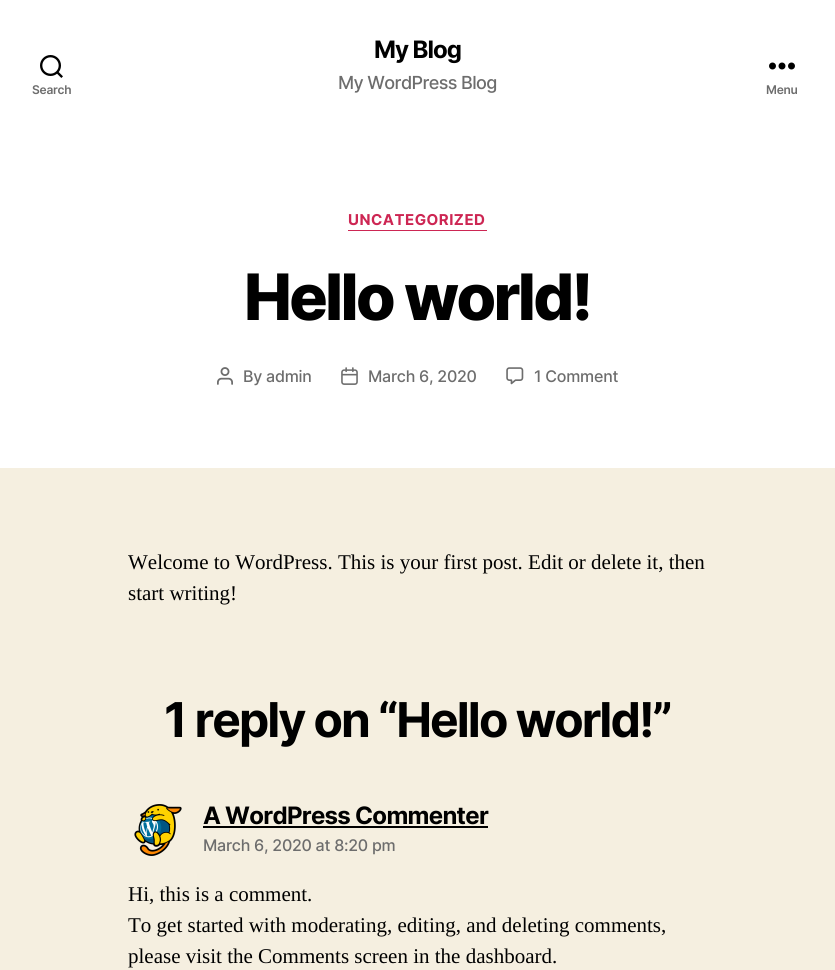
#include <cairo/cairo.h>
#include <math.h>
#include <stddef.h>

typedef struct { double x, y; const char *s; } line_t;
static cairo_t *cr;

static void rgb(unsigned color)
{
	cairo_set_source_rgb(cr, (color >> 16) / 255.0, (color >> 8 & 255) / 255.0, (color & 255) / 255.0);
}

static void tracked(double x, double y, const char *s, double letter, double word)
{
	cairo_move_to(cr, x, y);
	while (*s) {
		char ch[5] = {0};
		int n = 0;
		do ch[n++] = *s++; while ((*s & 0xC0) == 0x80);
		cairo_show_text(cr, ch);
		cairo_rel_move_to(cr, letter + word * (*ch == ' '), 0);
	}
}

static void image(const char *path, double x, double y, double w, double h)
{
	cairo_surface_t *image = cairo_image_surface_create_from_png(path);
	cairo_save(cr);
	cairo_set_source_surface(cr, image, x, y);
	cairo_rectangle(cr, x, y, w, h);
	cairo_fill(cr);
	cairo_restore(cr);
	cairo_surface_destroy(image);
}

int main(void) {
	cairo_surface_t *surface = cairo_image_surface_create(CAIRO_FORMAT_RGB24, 835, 970);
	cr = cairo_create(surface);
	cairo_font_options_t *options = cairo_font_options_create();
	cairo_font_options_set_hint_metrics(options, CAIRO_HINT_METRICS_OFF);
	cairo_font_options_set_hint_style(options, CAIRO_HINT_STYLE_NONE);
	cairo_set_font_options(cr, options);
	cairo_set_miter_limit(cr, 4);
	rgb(0xf5efe0);
	cairo_paint(cr);
	rgb(0xffffff);
	cairo_rectangle(cr, 0, 0, 835, 468);
	cairo_fill(cr);
	image("img/1.png", 40, 55, 23, 23);
	image("img/2.png", 769, 62, 26, 8);
	rgb(0xcd2653);
	cairo_rectangle(cr, 348, 230, 139, 1);
	cairo_fill(cr);
	image("img/3.png", 217, 367, 16, 18);
	image("img/4.png", 341, 367, 17, 18);
	image("img/5.png", 506, 367, 18, 18);
	image("img/6.png", 134, 804, 48, 52);
	rgb(0x000000);
	cairo_rectangle(cr, 203, 826, 285, 2);
	cairo_fill(cr);
	cairo_select_font_face(cr, "Inter SemiBold", CAIRO_FONT_SLANT_NORMAL, CAIRO_FONT_WEIGHT_NORMAL);
	cairo_set_font_size(cr, 12);
	rgb(0x6d6d6d);
	tracked(32, 94, "Search", -0.25, 0);
	cairo_select_font_face(cr, "Inter", CAIRO_FONT_SLANT_NORMAL, CAIRO_FONT_WEIGHT_BOLD);
	cairo_set_font_size(cr, 24);
	rgb(0x000000);
	tracked(374, 58, "My Blog", -1, 0);
	cairo_select_font_face(cr, "Inter Medium", CAIRO_FONT_SLANT_NORMAL, CAIRO_FONT_WEIGHT_NORMAL);
	cairo_set_font_size(cr, 18);
	rgb(0x6d6d6d);
	tracked(338, 89, "My WordPress Blog", -0.6, 0);
	cairo_select_font_face(cr, "Inter SemiBold", CAIRO_FONT_SLANT_NORMAL, CAIRO_FONT_WEIGHT_NORMAL);
	cairo_set_font_size(cr, 12);
	tracked(766, 94, "Menu", -0.25, 0);
	cairo_select_font_face(cr, "Inter", CAIRO_FONT_SLANT_NORMAL, CAIRO_FONT_WEIGHT_BOLD);
	cairo_set_font_size(cr, 15);
	rgb(0xcd2653);
	tracked(348, 225, "UNCATEGORIZED", 0.5, 0);
	cairo_select_font_face(cr, "Inter ExtraBold", CAIRO_FONT_SLANT_NORMAL, CAIRO_FONT_WEIGHT_NORMAL);
	cairo_set_font_size(cr, 64);
	rgb(0x000000);
	tracked(244, 320, "Hello world!", -2.7, 0);
	cairo_select_font_face(cr, "Inter Medium", CAIRO_FONT_SLANT_NORMAL, CAIRO_FONT_WEIGHT_NORMAL);
	cairo_set_font_size(cr, 16);
	rgb(0x6d6d6d);
	{
		static const line_t items[] = {
			{243, 382, "By admin"},
			{368, 382, "March 6, 2020"},
			{534, 382, "1 Comment"},
		};
		for (size_t i = 0; i < sizeof items / sizeof *items; i++) {
			tracked(items[i].x, items[i].y, items[i].s, -0.25, 0);
		}
	}
	cairo_select_font_face(cr, "Liberation Serif", CAIRO_FONT_SLANT_NORMAL, CAIRO_FONT_WEIGHT_NORMAL);
	cairo_set_font_size(cr, 21);
	rgb(0x000000);
	cairo_move_to(cr, 128, 569);
	cairo_show_text(cr, "Welcome to WordPress. This is your first post. Edit or delete it, then");
	cairo_move_to(cr, 128, 600);
	cairo_show_text(cr, "start writing!");
	cairo_select_font_face(cr, "Inter", CAIRO_FONT_SLANT_NORMAL, CAIRO_FONT_WEIGHT_BOLD);
	cairo_set_font_size(cr, 48);
	tracked(164, 737, "1 reply on “Hello world!”", -2, 0);
	cairo_set_font_size(cr, 24);
	tracked(203, 824, "A WordPress Commenter", -0.7, 0);
	cairo_select_font_face(cr, "Inter Medium", CAIRO_FONT_SLANT_NORMAL, CAIRO_FONT_WEIGHT_NORMAL);
	cairo_set_font_size(cr, 16);
	rgb(0x6d6d6d);
	tracked(203, 851, "March 6, 2020 at 8:20 pm", -0.25, 0);
	cairo_select_font_face(cr, "Liberation Serif", CAIRO_FONT_SLANT_NORMAL, CAIRO_FONT_WEIGHT_NORMAL);
	cairo_set_font_size(cr, 21);
	rgb(0x000000);
	{
		static const line_t items[] = {
			{128, 901, "Hi, this is a comment."},
			{128, 932, "To get started with moderating, editing, and deleting comments,"},
			{128, 963, "please visit the Comments screen in the dashboard."},
		};
		for (size_t i = 0; i < sizeof items / sizeof *items; i++) {
			cairo_move_to(cr, items[i].x, items[i].y);
			cairo_show_text(cr, items[i].s);
		}
	}
	cairo_surface_write_to_png(surface, "page.png");
	cairo_font_options_destroy(options);
	cairo_destroy(cr);
	cairo_surface_destroy(surface);
	return 0;
}
